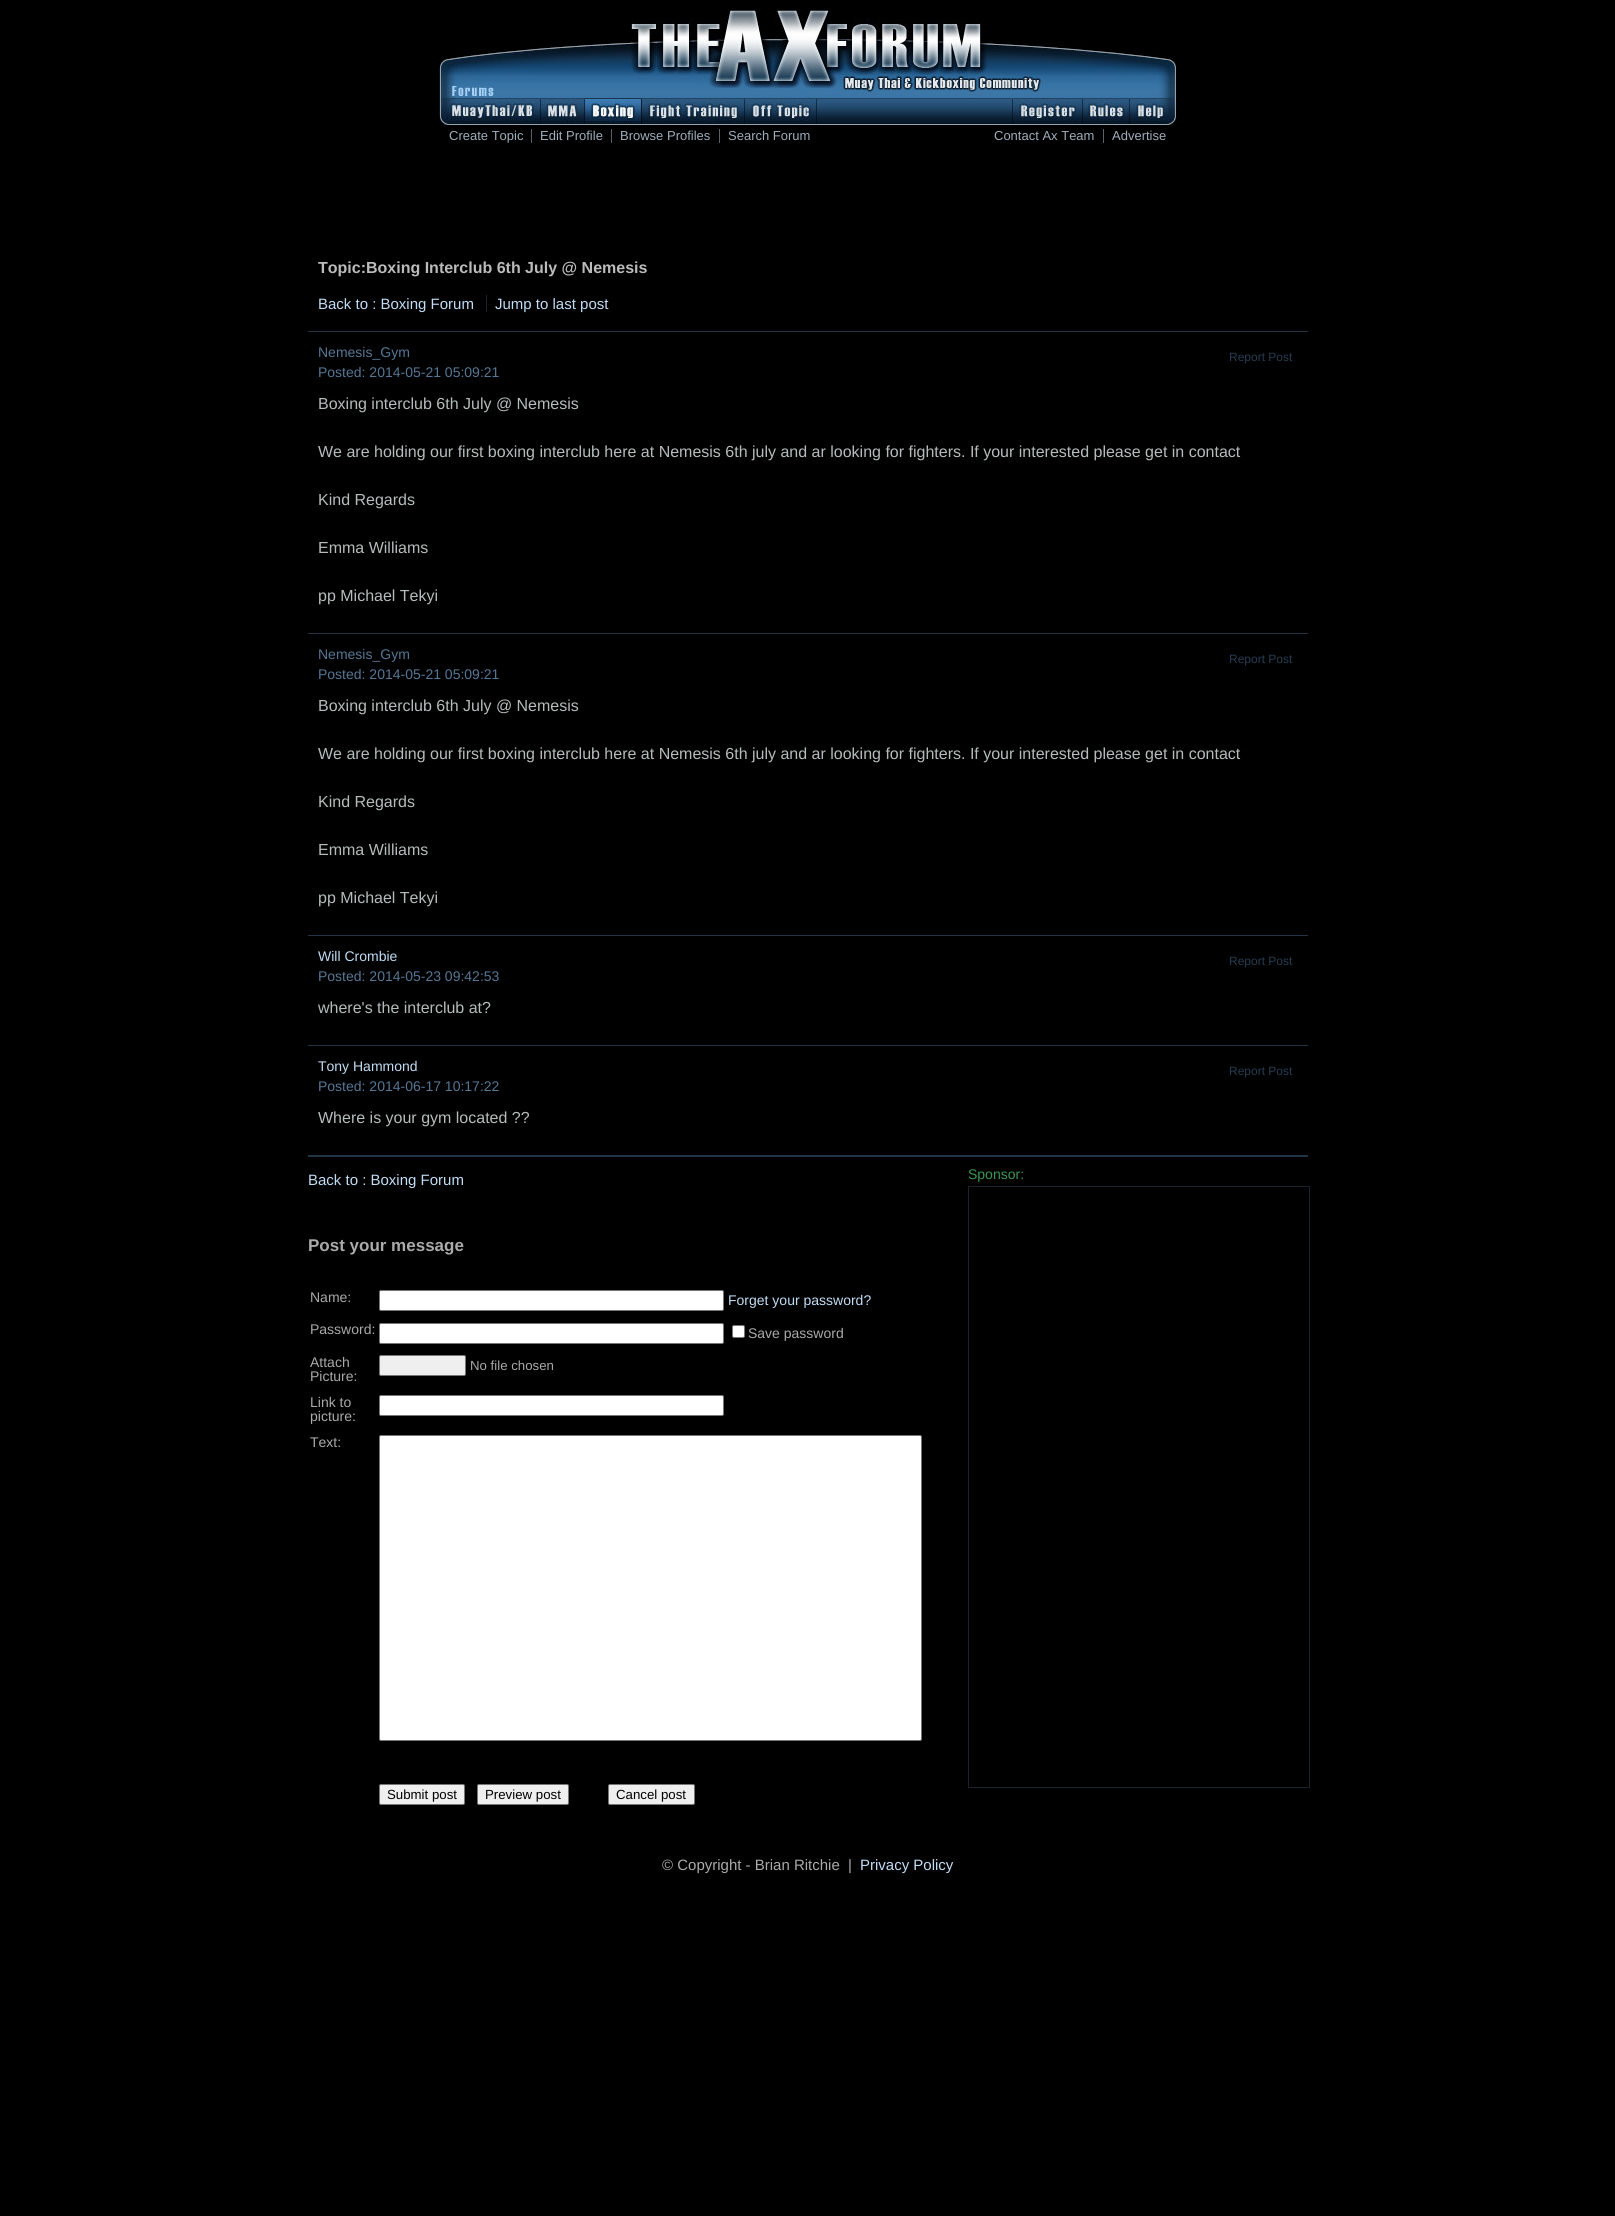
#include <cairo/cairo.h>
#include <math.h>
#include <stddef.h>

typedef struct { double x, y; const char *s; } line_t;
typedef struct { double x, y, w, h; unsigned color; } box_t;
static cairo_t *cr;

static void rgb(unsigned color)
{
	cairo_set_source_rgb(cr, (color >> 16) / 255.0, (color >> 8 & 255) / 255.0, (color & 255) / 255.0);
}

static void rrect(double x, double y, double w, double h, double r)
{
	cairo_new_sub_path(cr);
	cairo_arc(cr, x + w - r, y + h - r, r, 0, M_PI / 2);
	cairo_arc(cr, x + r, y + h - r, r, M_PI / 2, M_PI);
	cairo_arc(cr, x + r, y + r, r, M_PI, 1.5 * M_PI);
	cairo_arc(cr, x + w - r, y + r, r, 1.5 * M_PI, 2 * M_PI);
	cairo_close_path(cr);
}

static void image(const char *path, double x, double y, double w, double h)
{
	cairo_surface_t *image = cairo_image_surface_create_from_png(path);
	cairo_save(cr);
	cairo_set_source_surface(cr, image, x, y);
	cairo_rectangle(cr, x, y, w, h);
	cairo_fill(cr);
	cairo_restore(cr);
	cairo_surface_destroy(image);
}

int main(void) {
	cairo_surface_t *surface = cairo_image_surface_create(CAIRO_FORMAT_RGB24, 1615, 2216);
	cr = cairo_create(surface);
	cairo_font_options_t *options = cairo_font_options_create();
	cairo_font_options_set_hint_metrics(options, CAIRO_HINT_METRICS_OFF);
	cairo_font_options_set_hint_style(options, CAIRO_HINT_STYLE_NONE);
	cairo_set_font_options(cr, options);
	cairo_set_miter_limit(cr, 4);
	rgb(0x000000);
	cairo_paint(cr);
	image("img/1.png", 439, 10, 737, 88);
	image("img/2.png", 817, 98, 195, 27);
	image("img/3.png", 439, 98, 102, 27);
	image("img/4.png", 541, 98, 44, 27);
	image("img/5.png", 585, 98, 57, 27);
	image("img/6.png", 642, 98, 103, 27);
	image("img/7.png", 745, 98, 72, 27);
	image("img/8.png", 1012, 98, 70, 27);
	image("img/9.png", 1082, 98, 47, 27);
	image("img/10.png", 1129, 98, 47, 27);
	{
		static const box_t items[] = {
			{531, 129, 1, 14, 0x566169},
			{611, 129, 1, 14, 0x566169},
			{719, 129, 1, 14, 0x566169},
			{1103, 129, 1, 14, 0x566169},
			{486, 295, 1, 17, 0x19222d},
			{308, 331, 1000, 1, 0x223344},
			{308, 1155, 1000, 2, 0x223344},
			{308, 633, 1000, 1, 0x223344},
			{308, 935, 1000, 1, 0x223344},
			{308, 1045, 1000, 1, 0x223344},
		};
		for (size_t i = 0; i < sizeof items / sizeof *items; i++) {
			rgb(items[i].color);
			cairo_rectangle(cr, items[i].x, items[i].y, items[i].w, items[i].h);
			cairo_fill(cr);
		}
	}
	cairo_rectangle(cr, 968.5, 1186.5, 341, 601);
	rgb(0x19222d);
	cairo_set_line_width(cr, 1);
	cairo_stroke(cr);
	rgb(0xffffff);
	rrect(379.5, 1290.5, 344, 20, 1.5);
	cairo_fill_preserve(cr);
	rgb(0x767676);
	cairo_stroke(cr);
	rgb(0xffffff);
	rrect(379.5, 1323.5, 344, 20, 1.5);
	cairo_fill_preserve(cr);
	rgb(0x767676);
	cairo_stroke(cr);
	rgb(0xffffff);
	rrect(732.5, 1325.5, 12, 12, 1.5);
	cairo_fill_preserve(cr);
	rgb(0x767676);
	cairo_stroke(cr);
	rgb(0xefefef);
	rrect(379.5, 1355.5, 86, 20, 1.5);
	cairo_fill_preserve(cr);
	rgb(0x767676);
	cairo_stroke(cr);
	rgb(0xffffff);
	rrect(379.5, 1395.5, 344, 20, 1.5);
	cairo_fill_preserve(cr);
	rgb(0x767676);
	cairo_stroke(cr);
	rgb(0xffffff);
	rrect(379.5, 1435.5, 542, 305, 1.5);
	cairo_fill_preserve(cr);
	rgb(0x767676);
	cairo_stroke(cr);
	rgb(0xefefef);
	rrect(379.5, 1784.5, 85, 20, 1.5);
	cairo_fill_preserve(cr);
	rgb(0x767676);
	cairo_stroke(cr);
	rgb(0xefefef);
	rrect(477.5, 1784.5, 91, 20, 1.5);
	cairo_fill_preserve(cr);
	rgb(0x767676);
	cairo_stroke(cr);
	rgb(0xefefef);
	rrect(608.5, 1784.5, 86, 20, 1.5);
	cairo_fill_preserve(cr);
	rgb(0x767676);
	cairo_stroke(cr);
	cairo_select_font_face(cr, "Liberation Sans", CAIRO_FONT_SLANT_NORMAL, CAIRO_FONT_WEIGHT_NORMAL);
	cairo_set_font_size(cr, 13);
	rgb(0x9eaebb);
	{
		static const line_t items[] = {
			{449, 140, "Create Topic"},
			{540, 140, "Edit Profile"},
			{620, 140, "Browse Profiles"},
			{728, 140, "Search Forum"},
			{994, 140, "Contact Ax Team"},
			{1112, 140, "Advertise"},
		};
		for (size_t i = 0; i < sizeof items / sizeof *items; i++) {
			cairo_move_to(cr, items[i].x, items[i].y);
			cairo_show_text(cr, items[i].s);
		}
	}
	cairo_select_font_face(cr, "Liberation Sans", CAIRO_FONT_SLANT_NORMAL, CAIRO_FONT_WEIGHT_BOLD);
	cairo_set_font_size(cr, 16);
	rgb(0xbbbbbb);
	cairo_move_to(cr, 318, 273);
	cairo_show_text(cr, "Topic:Boxing Interclub 6th July @ Nemesis");
	cairo_select_font_face(cr, "Liberation Sans", CAIRO_FONT_SLANT_NORMAL, CAIRO_FONT_WEIGHT_NORMAL);
	cairo_set_font_size(cr, 15);
	rgb(0xc0ddf5);
	cairo_move_to(cr, 318, 309);
	cairo_show_text(cr, "Back to : Boxing Forum");
	cairo_move_to(cr, 495, 309);
	cairo_show_text(cr, "Jump to last post");
	cairo_set_font_size(cr, 14);
	rgb(0x547795);
	cairo_move_to(cr, 318, 357);
	cairo_show_text(cr, "Nemesis_Gym");
	cairo_set_font_size(cr, 12);
	rgb(0x263c52);
	cairo_move_to(cr, 1229, 361);
	cairo_show_text(cr, "Report Post");
	cairo_set_font_size(cr, 14);
	rgb(0x547795);
	cairo_move_to(cr, 318, 377);
	cairo_show_text(cr, "Posted: 2014-05-21 05:09:21");
	cairo_set_font_size(cr, 16);
	rgb(0xb4bdbc);
	{
		static const line_t items[] = {
			{318, 409, "Boxing interclub 6th July @ Nemesis"},
			{318, 457, "We are holding our first boxing interclub here at Nemesis 6th july and ar looking for fighters. If your interested please get in contact"},
			{318, 505, "Kind Regards"},
			{318, 553, "Emma Williams"},
			{318, 601, "pp Michael Tekyi"},
		};
		for (size_t i = 0; i < sizeof items / sizeof *items; i++) {
			cairo_move_to(cr, items[i].x, items[i].y);
			cairo_show_text(cr, items[i].s);
		}
	}
	cairo_set_font_size(cr, 14);
	rgb(0x547795);
	cairo_move_to(cr, 318, 659);
	cairo_show_text(cr, "Nemesis_Gym");
	cairo_set_font_size(cr, 12);
	rgb(0x263c52);
	cairo_move_to(cr, 1229, 663);
	cairo_show_text(cr, "Report Post");
	cairo_set_font_size(cr, 14);
	rgb(0x547795);
	cairo_move_to(cr, 318, 679);
	cairo_show_text(cr, "Posted: 2014-05-21 05:09:21");
	cairo_set_font_size(cr, 16);
	rgb(0xb4bdbc);
	{
		static const line_t items[] = {
			{318, 711, "Boxing interclub 6th July @ Nemesis"},
			{318, 759, "We are holding our first boxing interclub here at Nemesis 6th july and ar looking for fighters. If your interested please get in contact"},
			{318, 807, "Kind Regards"},
			{318, 855, "Emma Williams"},
			{318, 903, "pp Michael Tekyi"},
		};
		for (size_t i = 0; i < sizeof items / sizeof *items; i++) {
			cairo_move_to(cr, items[i].x, items[i].y);
			cairo_show_text(cr, items[i].s);
		}
	}
	cairo_set_font_size(cr, 14);
	rgb(0xc0ddf5);
	cairo_move_to(cr, 318, 961);
	cairo_show_text(cr, "Will Crombie");
	cairo_set_font_size(cr, 12);
	rgb(0x263c52);
	cairo_move_to(cr, 1229, 965);
	cairo_show_text(cr, "Report Post");
	cairo_set_font_size(cr, 14);
	rgb(0x547795);
	cairo_move_to(cr, 318, 981);
	cairo_show_text(cr, "Posted: 2014-05-23 09:42:53");
	cairo_set_font_size(cr, 16);
	rgb(0xb4bdbc);
	cairo_move_to(cr, 318, 1013);
	cairo_show_text(cr, "where's the interclub at?");
	cairo_set_font_size(cr, 14);
	rgb(0xc0ddf5);
	cairo_move_to(cr, 318, 1071);
	cairo_show_text(cr, "Tony Hammond");
	cairo_set_font_size(cr, 12);
	rgb(0x263c52);
	cairo_move_to(cr, 1229, 1075);
	cairo_show_text(cr, "Report Post");
	cairo_set_font_size(cr, 14);
	rgb(0x547795);
	cairo_move_to(cr, 318, 1091);
	cairo_show_text(cr, "Posted: 2014-06-17 10:17:22");
	cairo_set_font_size(cr, 16);
	rgb(0xb4bdbc);
	cairo_move_to(cr, 318, 1123);
	cairo_show_text(cr, "Where is your gym located ?\077");
	cairo_set_font_size(cr, 15);
	rgb(0xc0ddf5);
	cairo_move_to(cr, 308, 1185);
	cairo_show_text(cr, "Back to : Boxing Forum");
	cairo_set_font_size(cr, 14);
	rgb(0x3b9750);
	cairo_move_to(cr, 968, 1179);
	cairo_show_text(cr, "Sponsor:");
	cairo_select_font_face(cr, "Liberation Sans", CAIRO_FONT_SLANT_NORMAL, CAIRO_FONT_WEIGHT_BOLD);
	cairo_set_font_size(cr, 17);
	rgb(0xaaaaaa);
	cairo_move_to(cr, 308, 1251);
	cairo_show_text(cr, "Post your message");
	cairo_select_font_face(cr, "Liberation Sans", CAIRO_FONT_SLANT_NORMAL, CAIRO_FONT_WEIGHT_NORMAL);
	cairo_set_font_size(cr, 14);
	cairo_move_to(cr, 310, 1302);
	cairo_show_text(cr, "Name:");
	rgb(0xc0ddf5);
	cairo_move_to(cr, 728, 1305);
	cairo_show_text(cr, "Forget your password?");
	rgb(0xaaaaaa);
	{
		static const line_t items[] = {
			{310, 1334, "Password:"},
			{748, 1338, "Save password"},
			{310, 1367, "Attach"},
			{310, 1381, "Picture:"},
		};
		for (size_t i = 0; i < sizeof items / sizeof *items; i++) {
			cairo_move_to(cr, items[i].x, items[i].y);
			cairo_show_text(cr, items[i].s);
		}
	}
	cairo_set_font_size(cr, 13.25);
	cairo_move_to(cr, 470, 1370);
	cairo_show_text(cr, "No file chosen");
	cairo_set_font_size(cr, 14);
	{
		static const line_t items[] = {
			{310, 1407, "Link to"},
			{310, 1421, "picture:"},
			{310, 1447, "Text:"},
		};
		for (size_t i = 0; i < sizeof items / sizeof *items; i++) {
			cairo_move_to(cr, items[i].x, items[i].y);
			cairo_show_text(cr, items[i].s);
		}
	}
	cairo_set_font_size(cr, 13.25);
	rgb(0x000000);
	{
		static const line_t items[] = {
			{387, 1799, "Submit post"},
			{485, 1799, "Preview post"},
			{616, 1799, "Cancel post"},
		};
		for (size_t i = 0; i < sizeof items / sizeof *items; i++) {
			cairo_move_to(cr, items[i].x, items[i].y);
			cairo_show_text(cr, items[i].s);
		}
	}
	cairo_set_font_size(cr, 15);
	rgb(0xaaaaaa);
	cairo_move_to(cr, 662, 1870);
	cairo_show_text(cr, "© Copyright - Brian Ritchie  |");
	rgb(0xc0ddf5);
	cairo_move_to(cr, 860, 1870);
	cairo_show_text(cr, "Privacy Policy");
	cairo_surface_write_to_png(surface, "page.png");
	cairo_font_options_destroy(options);
	cairo_destroy(cr);
	cairo_surface_destroy(surface);
	return 0;
}
